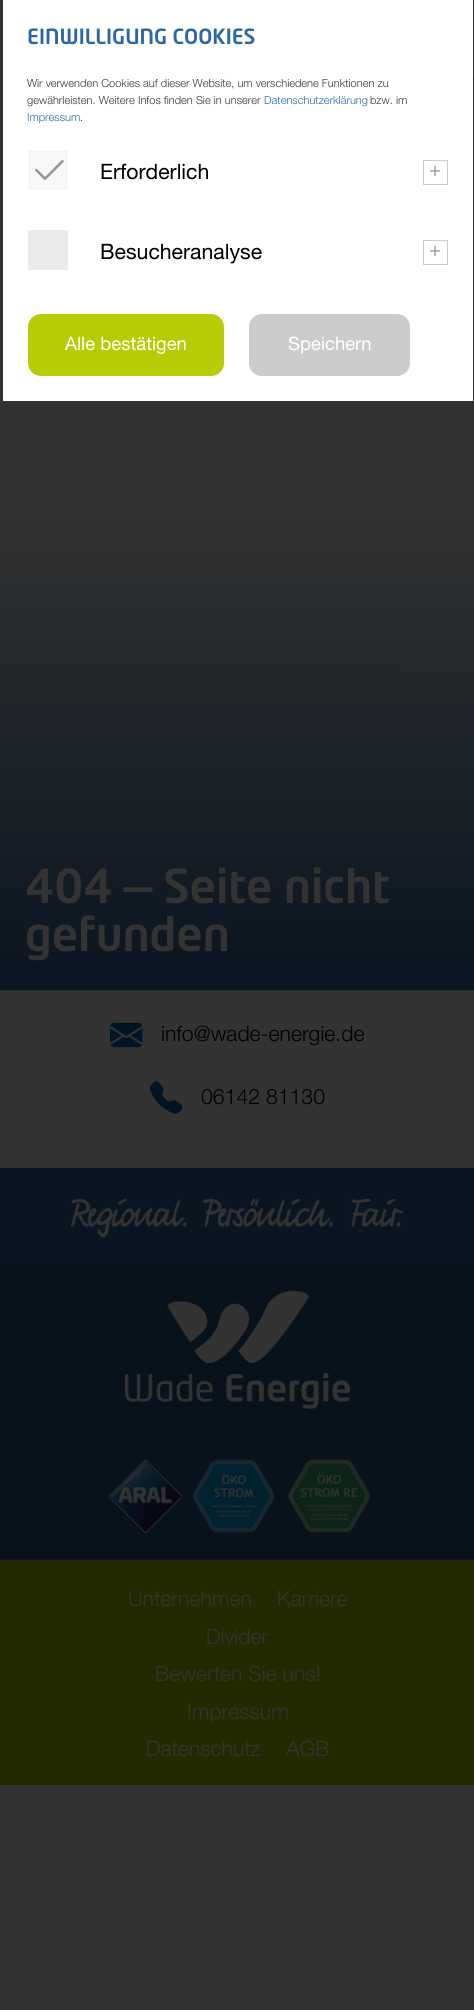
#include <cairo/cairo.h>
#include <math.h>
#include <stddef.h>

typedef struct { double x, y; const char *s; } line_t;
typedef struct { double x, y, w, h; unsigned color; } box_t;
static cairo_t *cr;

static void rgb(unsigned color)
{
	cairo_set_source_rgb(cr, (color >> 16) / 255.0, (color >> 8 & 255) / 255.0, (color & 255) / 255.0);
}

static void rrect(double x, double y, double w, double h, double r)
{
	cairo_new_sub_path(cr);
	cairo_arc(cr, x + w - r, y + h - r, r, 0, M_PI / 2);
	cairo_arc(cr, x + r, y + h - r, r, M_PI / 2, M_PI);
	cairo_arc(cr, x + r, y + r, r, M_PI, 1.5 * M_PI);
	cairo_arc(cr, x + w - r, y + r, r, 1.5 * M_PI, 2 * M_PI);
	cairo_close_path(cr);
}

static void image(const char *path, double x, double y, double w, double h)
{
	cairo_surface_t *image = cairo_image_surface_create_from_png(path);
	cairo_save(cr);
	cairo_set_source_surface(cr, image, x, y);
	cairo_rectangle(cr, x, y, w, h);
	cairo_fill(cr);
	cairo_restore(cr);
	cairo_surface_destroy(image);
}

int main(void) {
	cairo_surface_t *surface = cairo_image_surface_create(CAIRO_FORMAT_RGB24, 474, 2010);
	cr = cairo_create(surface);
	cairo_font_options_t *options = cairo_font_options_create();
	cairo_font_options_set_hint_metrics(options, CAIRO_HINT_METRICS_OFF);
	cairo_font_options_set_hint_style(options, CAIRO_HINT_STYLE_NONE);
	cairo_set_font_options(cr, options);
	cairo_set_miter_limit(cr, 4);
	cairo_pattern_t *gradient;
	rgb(0x333333);
	cairo_paint(cr);
	{
		static const box_t items[] = {
			{0, 79, 474, 1, 0x28292a},
			{3, 0, 470, 401, 0xffffff},
			{28, 150, 40, 40, 0xf7f7f7},
		};
		for (size_t i = 0; i < sizeof items / sizeof *items; i++) {
			rgb(items[i].color);
			cairo_rectangle(cr, items[i].x, items[i].y, items[i].w, items[i].h);
			cairo_fill(cr);
		}
	}
	image("img/1.png", 35, 160, 29, 20);
	cairo_rectangle(cr, 423.5, 160.5, 24, 24);
	rgb(0xcccccc);
	cairo_set_line_width(cr, 1);
	cairo_stroke(cr);
	rgb(0xeaeaea);
	cairo_rectangle(cr, 28, 230, 40, 40);
	cairo_fill(cr);
	cairo_rectangle(cr, 423.5, 240.5, 24, 24);
	rgb(0xcccccc);
	cairo_stroke(cr);
	rgb(0xb7cc06);
	rrect(28, 314, 196, 62, 13);
	cairo_fill(cr);
	rgb(0xcccccc);
	rrect(249.5, 314.5, 160, 61, 12.5);
	cairo_fill_preserve(cr);
	cairo_stroke(cr);
	gradient = cairo_pattern_create_linear(238, 489, 237, 991);
	cairo_pattern_add_color_stop_rgba(gradient, 0, 0.2, 0.2, 0.2, 1);
	cairo_pattern_add_color_stop_rgba(gradient, 1, 0.035, 0.082, 0.129, 1);
	cairo_set_source(cr, gradient);
	cairo_pattern_destroy(gradient);
	cairo_rectangle(cr, 0, 518, 474, 472);
	cairo_fill(cr);
	rgb(0x28292a);
	cairo_rectangle(cr, 0, 990, 474, 1);
	cairo_fill(cr);
	image("img/2.png", 110, 1022, 33, 26);
	image("img/3.png", 150, 1081, 33, 33);
	rgb(0x091521);
	cairo_rectangle(cr, 0, 1168, 474, 95);
	cairo_fill(cr);
	image("img/4.png", 71, 1198, 333, 40);
	rgb(0x08121c);
	cairo_rectangle(cr, 0, 1263, 474, 296);
	cairo_fill(cr);
	image("img/5.png", 125, 1290, 225, 119);
	image("img/6.png", 108, 1459, 74, 75);
	image("img/7.png", 192, 1459, 179, 74);
	rgb(0x252901);
	cairo_rectangle(cr, 0, 1560, 474, 225);
	cairo_fill(cr);
	rgb(0x0b1a28);
	cairo_rectangle(cr, 0, 1559, 474, 1);
	cairo_fill(cr);
	cairo_select_font_face(cr, "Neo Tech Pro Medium", CAIRO_FONT_SLANT_NORMAL, CAIRO_FONT_WEIGHT_NORMAL);
	cairo_set_font_size(cr, 20.75);
	rgb(0x2b68a3);
	cairo_move_to(cr, 27, 44);
	cairo_show_text(cr, "EINWILLIGUNG COOKIES");
	cairo_select_font_face(cr, "Helvetica Neue Light", CAIRO_FONT_SLANT_NORMAL, CAIRO_FONT_WEIGHT_NORMAL);
	cairo_set_font_size(cr, 11.1);
	rgb(0x333333);
	cairo_move_to(cr, 27, 87);
	cairo_show_text(cr, "Wir verwenden Cookies auf dieser Website, um verschiedene Funktionen zu");
	cairo_move_to(cr, 27, 104);
	cairo_show_text(cr, "gewährleisten. Weitere Infos finden Sie in unserer");
	rgb(0x2b68a3);
	cairo_move_to(cr, 264, 104);
	cairo_show_text(cr, "Datenschutzerklärung");
	rgb(0x333333);
	cairo_move_to(cr, 370, 104);
	cairo_show_text(cr, "bzw. im");
	rgb(0x2b68a3);
	cairo_move_to(cr, 27, 121);
	cairo_show_text(cr, "Impressum");
	rgb(0x333333);
	cairo_move_to(cr, 80, 121);
	cairo_show_text(cr, ".");
	cairo_select_font_face(cr, "Helvetica Neue", CAIRO_FONT_SLANT_NORMAL, CAIRO_FONT_WEIGHT_NORMAL);
	cairo_set_font_size(cr, 21.25);
	rgb(0x000000);
	cairo_move_to(cr, 100, 179);
	cairo_show_text(cr, "Erforderlich");
	cairo_set_font_size(cr, 20);
	rgb(0x999999);
	cairo_move_to(cr, 429, 176);
	cairo_show_text(cr, "+");
	cairo_set_font_size(cr, 21.25);
	rgb(0x000000);
	cairo_move_to(cr, 100, 259);
	cairo_show_text(cr, "Besucheranalyse");
	cairo_set_font_size(cr, 20);
	rgb(0x999999);
	cairo_move_to(cr, 429, 256);
	cairo_show_text(cr, "+");
	cairo_set_font_size(cr, 18.5);
	rgb(0xffffff);
	cairo_move_to(cr, 65, 350);
	cairo_show_text(cr, "Alle bestätigen");
	cairo_move_to(cr, 288, 350);
	cairo_show_text(cr, "Speichern");
	cairo_select_font_face(cr, "Neo Tech Pro Medium", CAIRO_FONT_SLANT_NORMAL, CAIRO_FONT_WEIGHT_NORMAL);
	cairo_set_font_size(cr, 46.25);
	rgb(0x333333);
	cairo_move_to(cr, 25, 903);
	cairo_show_text(cr, "404 — Seite nicht");
	cairo_move_to(cr, 25, 951);
	cairo_show_text(cr, "gefunden");
	cairo_select_font_face(cr, "Helvetica Neue Light", CAIRO_FONT_SLANT_NORMAL, CAIRO_FONT_WEIGHT_NORMAL);
	cairo_set_font_size(cr, 21.25);
	rgb(0x000000);
	cairo_move_to(cr, 161, 1041);
	cairo_show_text(cr, "info@wade-energie.de");
	cairo_move_to(cr, 201, 1104);
	cairo_show_text(cr, "06142 81130");
	rgb(0x333333);
	{
		static const line_t items[] = {
			{128, 1606, "Unternehmen"},
			{277, 1606, "Karriere"},
			{206, 1644, "Divider"},
			{155, 1681, "Bewerten Sie uns!"},
			{187, 1719, "Impressum"},
			{146, 1756, "Datenschutz"},
			{286, 1756, "AGB"},
		};
		for (size_t i = 0; i < sizeof items / sizeof *items; i++) {
			cairo_move_to(cr, items[i].x, items[i].y);
			cairo_show_text(cr, items[i].s);
		}
	}
	cairo_surface_write_to_png(surface, "page.png");
	cairo_font_options_destroy(options);
	cairo_destroy(cr);
	cairo_surface_destroy(surface);
	return 0;
}
